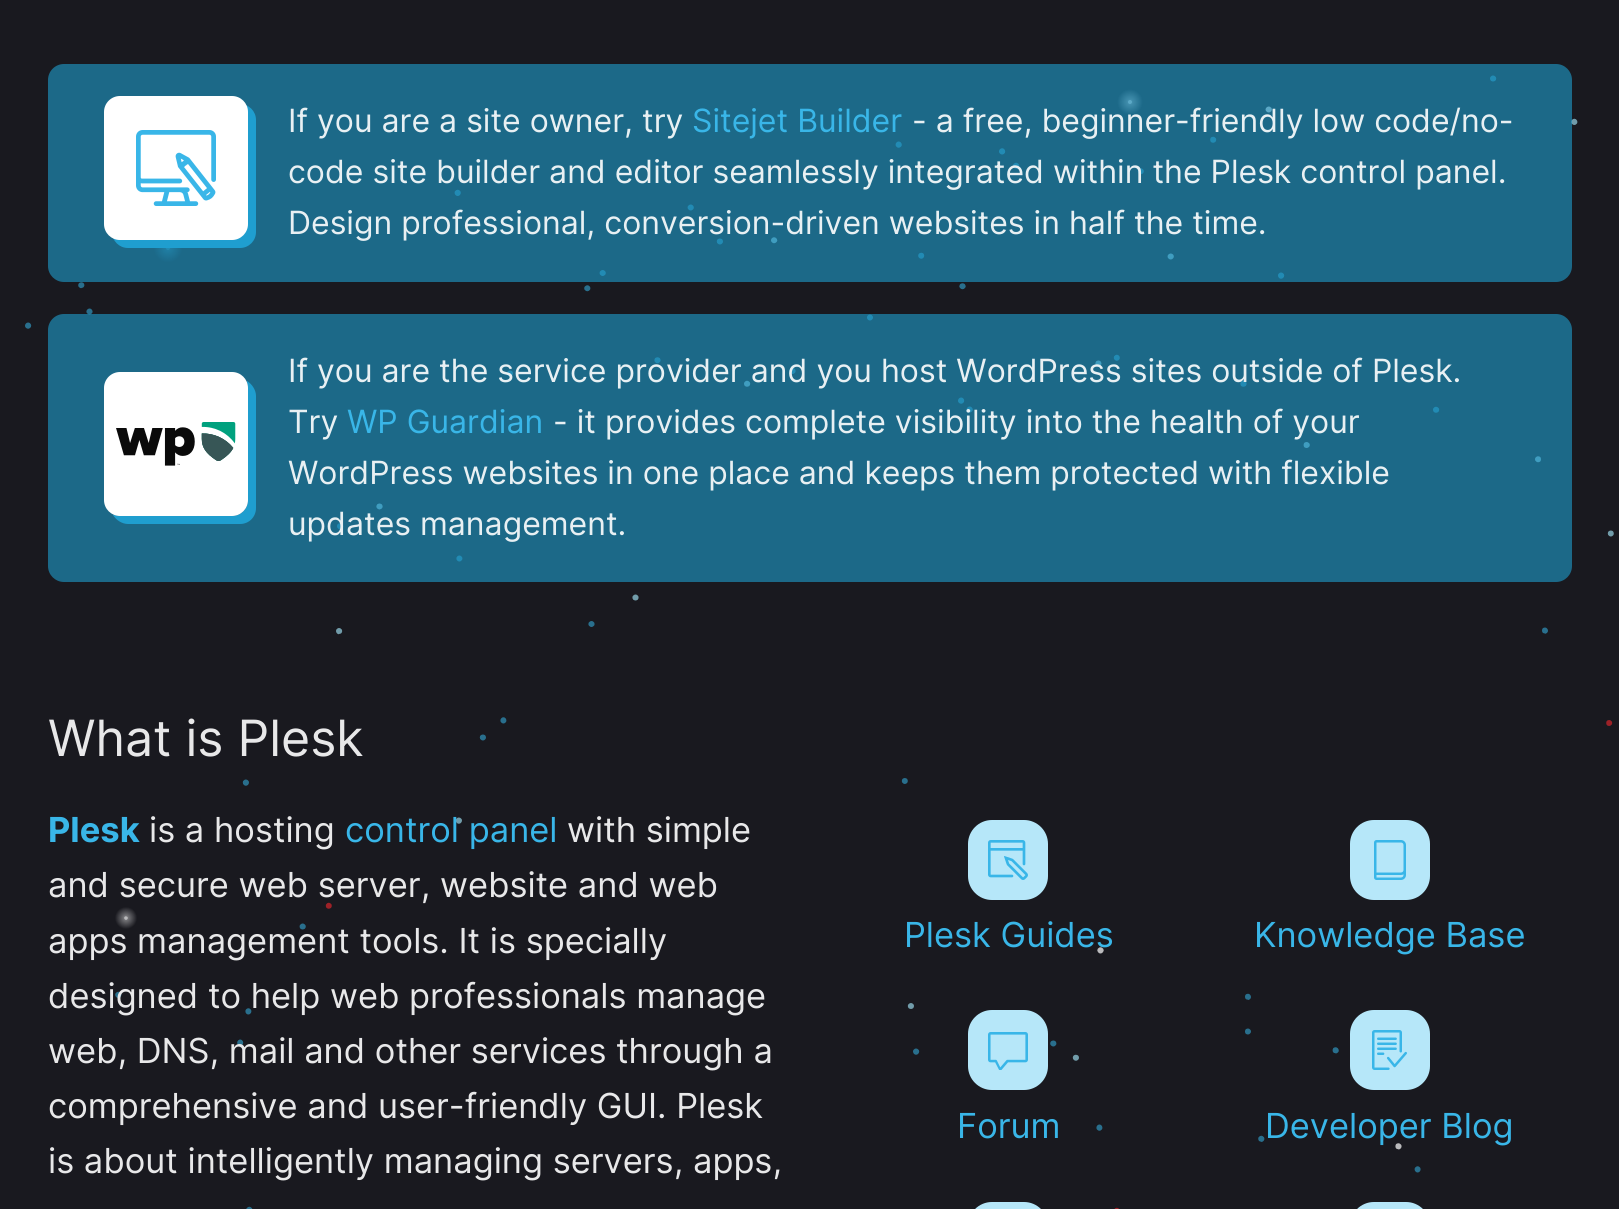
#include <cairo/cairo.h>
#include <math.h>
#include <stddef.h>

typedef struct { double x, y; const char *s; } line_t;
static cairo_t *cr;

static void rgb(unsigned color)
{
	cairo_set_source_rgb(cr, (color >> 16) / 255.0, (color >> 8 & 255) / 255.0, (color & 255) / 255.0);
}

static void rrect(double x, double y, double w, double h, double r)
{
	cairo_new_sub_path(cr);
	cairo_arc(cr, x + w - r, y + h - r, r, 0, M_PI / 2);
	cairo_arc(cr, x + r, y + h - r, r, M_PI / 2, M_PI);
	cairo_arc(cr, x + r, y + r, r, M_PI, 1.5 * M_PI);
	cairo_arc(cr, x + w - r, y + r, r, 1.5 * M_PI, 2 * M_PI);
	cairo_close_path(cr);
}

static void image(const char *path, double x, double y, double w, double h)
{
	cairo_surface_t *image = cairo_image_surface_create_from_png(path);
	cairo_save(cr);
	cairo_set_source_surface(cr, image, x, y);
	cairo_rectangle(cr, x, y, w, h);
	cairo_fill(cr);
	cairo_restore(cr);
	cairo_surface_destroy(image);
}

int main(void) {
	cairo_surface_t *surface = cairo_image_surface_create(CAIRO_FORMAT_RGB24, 1619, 1209);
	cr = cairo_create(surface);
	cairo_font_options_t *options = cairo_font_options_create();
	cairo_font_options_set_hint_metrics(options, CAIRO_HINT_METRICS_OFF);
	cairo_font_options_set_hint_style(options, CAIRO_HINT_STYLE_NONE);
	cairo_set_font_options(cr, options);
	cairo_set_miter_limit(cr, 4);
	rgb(0x19191f);
	cairo_paint(cr);
	image("img/1.png", 25, 75, 1589, 1134);
	cairo_set_source_rgba(cr, 0.122, 0.62, 0.812, 0.6);
	rrect(48, 64, 1524, 218, 16);
	cairo_fill(cr);
	image("img/2.png", 104, 96, 152, 152);
	rrect(48, 314, 1524, 268, 16);
	cairo_fill(cr);
	rgb(0x1f9ecf);
	cairo_new_path(cr);
	cairo_move_to(cr, 113, 515);
	cairo_curve_to(cr, 116, 520, 122, 524, 128, 524);
	cairo_line_to(cr, 240, 524);
	cairo_curve_to(cr, 249, 524, 256, 517, 256, 508);
	cairo_line_to(cr, 256, 396);
	cairo_curve_to(cr, 256, 390, 252, 384, 247, 381);
	cairo_curve_to(cr, 247, 383, 248, 386, 248, 388);
	cairo_line_to(cr, 248, 500);
	cairo_curve_to(cr, 248, 509, 241, 516, 232, 516);
	cairo_line_to(cr, 120, 516);
	cairo_curve_to(cr, 118, 516, 115, 515, 113, 515);
	cairo_close_path(cr);
	cairo_fill(cr);
	rgb(0xffffff);
	rrect(104, 372, 144, 144, 16);
	cairo_fill(cr);
	image("img/3.png", 116, 422, 120, 44);
	rgb(0xb6e7f9);
	rrect(968, 820, 80, 80, 24);
	cairo_fill(cr);
	image("img/4.png", 988, 840, 40, 40);
	rrect(1350, 820, 80, 80, 24);
	cairo_fill(cr);
	image("img/5.png", 1374, 840, 32, 40);
	rrect(968, 1010, 80, 80, 24);
	cairo_fill(cr);
	image("img/6.png", 988, 1032, 40, 38);
	rrect(1350, 1010, 80, 80, 24);
	cairo_fill(cr);
	image("img/7.png", 1372, 1030, 35, 40);
	rrect(968, 1202, 80, 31, 24);
	cairo_fill(cr);
	rrect(1350, 1202, 80, 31, 24);
	cairo_fill(cr);
	cairo_select_font_face(cr, "Inter", CAIRO_FONT_SLANT_NORMAL, CAIRO_FONT_WEIGHT_NORMAL);
	cairo_set_font_size(cr, 32);
	rgb(0xe8f0f3);
	cairo_move_to(cr, 288, 132);
	cairo_show_text(cr, "If you are a site owner, try");
	rgb(0x39b6e8);
	cairo_move_to(cr, 692, 132);
	cairo_show_text(cr, "Sitejet Builder");
	rgb(0xe8f0f3);
	{
		static const line_t items[] = {
			{912, 132, "- a free, beginner-friendly low code/no-"},
			{288, 183, "code site builder and editor seamlessly integrated within the Plesk control panel."},
			{288, 234, "Design professional, conversion-driven websites in half the time."},
			{288, 382, "If you are the service provider and you host WordPress sites outside of Plesk."},
			{288, 433, "Try"},
		};
		for (size_t i = 0; i < sizeof items / sizeof *items; i++) {
			cairo_move_to(cr, items[i].x, items[i].y);
			cairo_show_text(cr, items[i].s);
		}
	}
	rgb(0x39b6e8);
	cairo_move_to(cr, 347, 433);
	cairo_show_text(cr, "WP Guardian");
	rgb(0xe8f0f3);
	{
		static const line_t items[] = {
			{553, 433, "- it provides complete visibility into the health of your"},
			{288, 484, "WordPress websites in one place and keeps them protected with flexible"},
			{288, 535, "updates management."},
		};
		for (size_t i = 0; i < sizeof items / sizeof *items; i++) {
			cairo_move_to(cr, items[i].x, items[i].y);
			cairo_show_text(cr, items[i].s);
		}
	}
	cairo_set_font_size(cr, 50);
	rgb(0xe8e8e9);
	cairo_move_to(cr, 48, 756);
	cairo_show_text(cr, "What is Plesk");
	cairo_select_font_face(cr, "Inter", CAIRO_FONT_SLANT_NORMAL, CAIRO_FONT_WEIGHT_BOLD);
	cairo_set_font_size(cr, 34.45);
	rgb(0x39b6e8);
	cairo_move_to(cr, 48, 842);
	cairo_show_text(cr, "Plesk");
	cairo_select_font_face(cr, "Inter", CAIRO_FONT_SLANT_NORMAL, CAIRO_FONT_WEIGHT_NORMAL);
	rgb(0xe8e8e9);
	cairo_move_to(cr, 149, 842);
	cairo_show_text(cr, "is a hosting");
	rgb(0x39b6e8);
	cairo_move_to(cr, 345, 842);
	cairo_show_text(cr, "control panel");
	rgb(0xe8e8e9);
	{
		static const line_t items[] = {
			{567, 842, "with simple"},
			{48, 897, "and secure web server, website and web"},
			{48, 953, "apps management tools. It is specially"},
			{48, 1008, "designed to help web professionals manage"},
			{48, 1063, "web, DNS, mail and other services through a"},
			{48, 1118, "comprehensive and user-friendly GUI. Plesk"},
			{48, 1173, "is about intelligently managing servers, apps,"},
		};
		for (size_t i = 0; i < sizeof items / sizeof *items; i++) {
			cairo_move_to(cr, items[i].x, items[i].y);
			cairo_show_text(cr, items[i].s);
		}
	}
	rgb(0x39b6e8);
	{
		static const line_t items[] = {
			{904, 947, "Plesk Guides"},
			{1254, 947, "Knowledge Base"},
			{957, 1138, "Forum"},
			{1265, 1138, "Developer Blog"},
		};
		for (size_t i = 0; i < sizeof items / sizeof *items; i++) {
			cairo_move_to(cr, items[i].x, items[i].y);
			cairo_show_text(cr, items[i].s);
		}
	}
	cairo_surface_write_to_png(surface, "page.png");
	cairo_font_options_destroy(options);
	cairo_destroy(cr);
	cairo_surface_destroy(surface);
	return 0;
}
